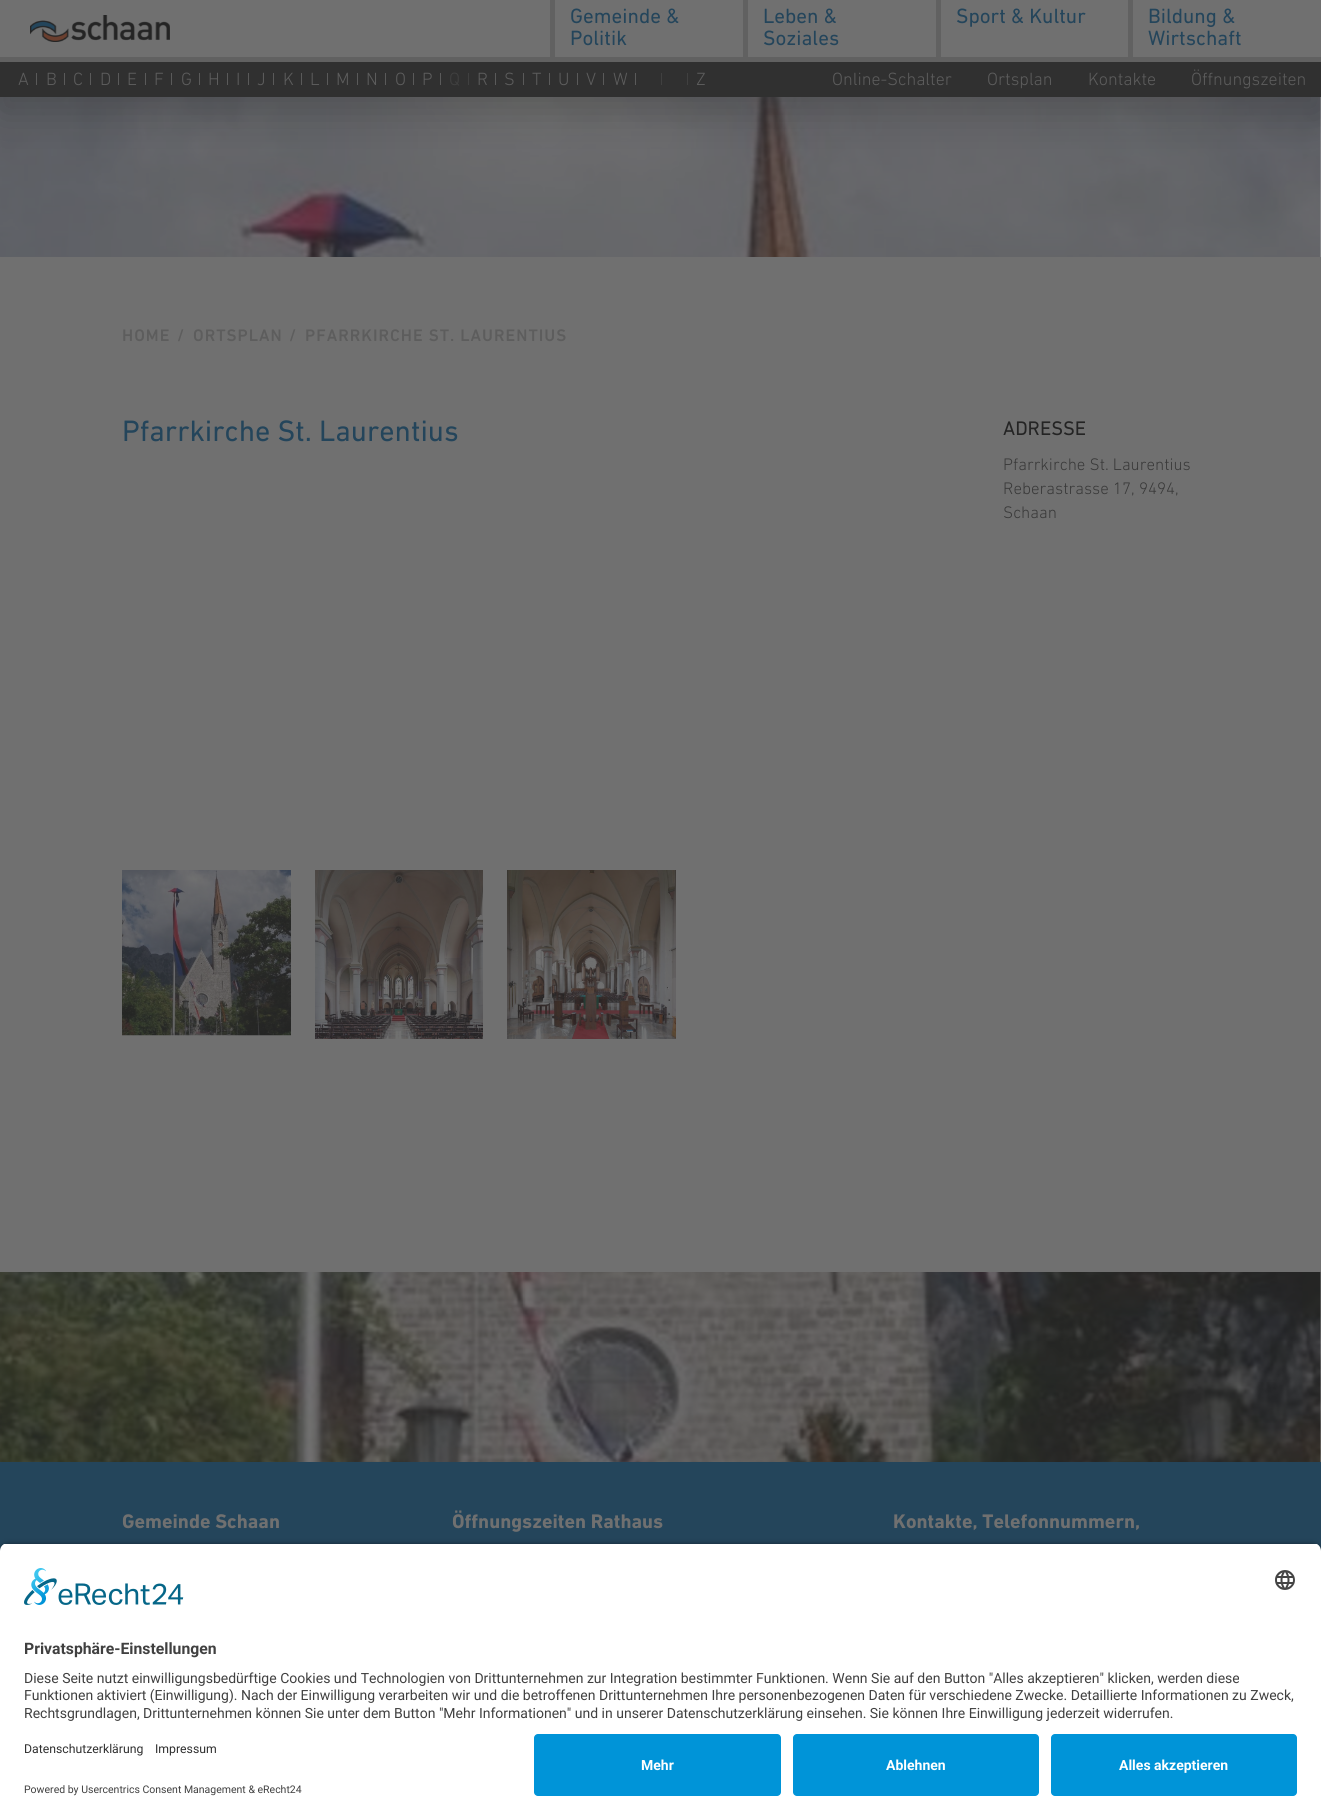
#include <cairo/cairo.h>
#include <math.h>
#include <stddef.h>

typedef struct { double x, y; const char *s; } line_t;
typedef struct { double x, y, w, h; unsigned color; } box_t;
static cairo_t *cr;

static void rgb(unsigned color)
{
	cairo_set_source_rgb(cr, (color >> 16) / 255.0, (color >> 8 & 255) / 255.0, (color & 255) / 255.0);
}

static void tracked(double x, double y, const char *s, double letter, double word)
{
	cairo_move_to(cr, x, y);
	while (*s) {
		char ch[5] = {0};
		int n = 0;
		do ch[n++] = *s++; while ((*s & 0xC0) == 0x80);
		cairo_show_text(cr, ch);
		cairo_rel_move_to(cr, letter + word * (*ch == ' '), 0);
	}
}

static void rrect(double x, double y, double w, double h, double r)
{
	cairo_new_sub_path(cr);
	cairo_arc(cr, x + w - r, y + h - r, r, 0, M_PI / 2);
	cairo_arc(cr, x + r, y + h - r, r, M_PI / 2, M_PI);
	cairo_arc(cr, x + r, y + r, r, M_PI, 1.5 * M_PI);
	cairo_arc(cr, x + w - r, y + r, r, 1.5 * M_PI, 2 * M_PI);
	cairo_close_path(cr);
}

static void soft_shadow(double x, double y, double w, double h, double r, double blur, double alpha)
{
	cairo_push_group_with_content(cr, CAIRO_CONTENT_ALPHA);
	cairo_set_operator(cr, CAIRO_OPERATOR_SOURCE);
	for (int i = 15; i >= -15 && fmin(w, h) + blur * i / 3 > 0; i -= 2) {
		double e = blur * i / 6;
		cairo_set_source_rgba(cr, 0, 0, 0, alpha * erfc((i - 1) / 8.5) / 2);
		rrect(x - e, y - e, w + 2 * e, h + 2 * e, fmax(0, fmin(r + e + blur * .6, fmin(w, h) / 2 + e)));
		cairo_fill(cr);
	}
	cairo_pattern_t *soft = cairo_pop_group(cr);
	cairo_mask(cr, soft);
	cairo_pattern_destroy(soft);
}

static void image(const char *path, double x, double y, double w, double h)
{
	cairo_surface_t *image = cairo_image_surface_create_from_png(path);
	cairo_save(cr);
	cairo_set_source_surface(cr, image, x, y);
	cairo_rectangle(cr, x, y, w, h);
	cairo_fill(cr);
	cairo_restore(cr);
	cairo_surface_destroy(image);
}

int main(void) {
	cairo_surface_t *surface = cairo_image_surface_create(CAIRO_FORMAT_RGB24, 1321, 1820);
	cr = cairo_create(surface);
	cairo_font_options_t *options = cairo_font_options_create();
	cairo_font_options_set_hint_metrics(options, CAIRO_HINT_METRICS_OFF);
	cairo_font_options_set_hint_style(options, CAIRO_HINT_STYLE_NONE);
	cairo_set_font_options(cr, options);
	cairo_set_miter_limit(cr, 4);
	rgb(0xffffff);
	cairo_paint(cr);
	image("img/2.png", 0, 97, 1321, 1365);
	rgb(0x242424);
	soft_shadow(0, 15, 1321, 97, 0, 20, 0.3);
	rgb(0x616161);
	cairo_rectangle(cr, 0, 0, 1321, 62);
	cairo_fill(cr);
	rgb(0x707070);
	cairo_rectangle(cr, 0, 0, 550, 57);
	cairo_fill(cr);
	image("img/1.png", 30, 15, 140, 27);
	{
		static const box_t items[] = {
			{555, 0, 188, 57, 0x707070},
			{748, 0, 188, 57, 0x707070},
			{941, 0, 187, 57, 0x707070},
			{1133, 0, 188, 57, 0x707070},
			{0, 62, 1321, 35, 0x303030},
			{36, 73, 1, 12, 0x5a5a5a},
			{64, 73, 1, 12, 0x5a5a5a},
			{90, 73, 1, 12, 0x5a5a5a},
			{118, 73, 1, 12, 0x5a5a5a},
			{145, 73, 1, 12, 0x5a5a5a},
			{171, 73, 1, 12, 0x5a5a5a},
			{199, 73, 1, 12, 0x5a5a5a},
			{227, 73, 1, 12, 0x5a5a5a},
			{248, 73, 1, 12, 0x5a5a5a},
			{273, 73, 1, 12, 0x5a5a5a},
			{301, 73, 1, 12, 0x5a5a5a},
			{327, 73, 1, 12, 0x5a5a5a},
			{357, 73, 1, 12, 0x5a5a5a},
			{385, 73, 1, 12, 0x5a5a5a},
			{413, 73, 1, 12, 0x5a5a5a},
			{440, 73, 1, 12, 0x5a5a5a},
			{468, 73, 1, 12, 0x404040},
			{495, 73, 1, 12, 0x5a5a5a},
			{523, 73, 1, 12, 0x5a5a5a},
			{549, 73, 1, 12, 0x5a5a5a},
			{577, 73, 1, 12, 0x5a5a5a},
			{603, 73, 1, 12, 0x5a5a5a},
			{635, 73, 1, 12, 0x5a5a5a},
			{661, 73, 1, 12, 0x404040},
			{687, 73, 1, 12, 0x404040},
			{0, 257, 1321, 1015, 0x707070},
		};
		for (size_t i = 0; i < sizeof items / sizeof *items; i++) {
			rgb(items[i].color);
			cairo_rectangle(cr, items[i].x, items[i].y, items[i].w, items[i].h);
			cairo_fill(cr);
		}
	}
	image("img/3.png", 122, 870, 169, 166);
	image("img/4.png", 315, 870, 168, 169);
	image("img/5.png", 507, 870, 169, 169);
	rgb(0x24455b);
	cairo_rectangle(cr, 0, 1462, 1321, 89);
	cairo_fill(cr);
	rgb(0x000000);
	soft_shadow(0, 1546, 1321, 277, 8, 3.5, 0.8);
	cairo_save(cr);
	cairo_new_path(cr);
	cairo_move_to(cr, 8, 1543);
	cairo_line_to(cr, 1313, 1543);
	cairo_curve_to(cr, 1317.5, 1543, 1321, 1546.5, 1321, 1551);
	cairo_line_to(cr, 1321, 1726);
	cairo_line_to(cr, 0, 1726);
	cairo_line_to(cr, 0, 1551);
	cairo_curve_to(cr, 0, 1546.5, 3.5, 1543, 8, 1543);
	cairo_close_path(cr);
	cairo_clip(cr);
	rgb(0xffffff);
	cairo_rectangle(cr, 0, 1544, 1321, 182);
	cairo_fill(cr);
	cairo_restore(cr);
	image("img/6.png", 24, 1568, 160, 37);
	image("img/7.png", 1275, 1570, 20, 20);
	rgb(0xffffff);
	cairo_rectangle(cr, 0, 1726, 1321, 94);
	cairo_fill(cr);
	rgb(0x0094d8);
	rrect(534, 1734, 247, 62, 4);
	cairo_fill(cr);
	rrect(793, 1734, 246, 62, 4);
	cairo_fill(cr);
	rrect(1051, 1734, 246, 62, 4);
	cairo_fill(cr);
	cairo_select_font_face(cr, "DIN Next", CAIRO_FONT_SLANT_NORMAL, CAIRO_FONT_WEIGHT_NORMAL);
	cairo_set_font_size(cr, 21);
	rgb(0x24455b);
	{
		static const line_t items[] = {
			{570, 23, "Gemeinde &"},
			{570, 45, "Politik"},
			{763, 23, "Leben &"},
			{763, 45, "Soziales"},
			{956, 23, "Sport & Kultur"},
			{1148, 23, "Bildung &"},
			{1148, 45, "Wirtschaft"},
		};
		for (size_t i = 0; i < sizeof items / sizeof *items; i++) {
			cairo_move_to(cr, items[i].x, items[i].y);
			cairo_show_text(cr, items[i].s);
		}
	}
	cairo_select_font_face(cr, "DIN Next Light", CAIRO_FONT_SLANT_NORMAL, CAIRO_FONT_WEIGHT_NORMAL);
	cairo_set_font_size(cr, 18);
	rgb(0x5d5d5d);
	{
		static const line_t items[] = {
			{18, 85, "A"},
			{46, 85, "B"},
			{73, 85, "C"},
			{100, 85, "D"},
			{127, 85, "E"},
			{154, 85, "F"},
			{181, 85, "G"},
			{208, 85, "H"},
			{236, 85, "I"},
			{257, 85, "J"},
			{283, 85, "K"},
			{310, 85, "L"},
			{336, 85, "M"},
			{366, 85, "N"},
			{395, 85, "O"},
			{422, 85, "P"},
		};
		for (size_t i = 0; i < sizeof items / sizeof *items; i++) {
			cairo_move_to(cr, items[i].x, items[i].y);
			cairo_show_text(cr, items[i].s);
		}
	}
	rgb(0x404040);
	cairo_move_to(cr, 449, 85);
	cairo_show_text(cr, "Q");
	rgb(0x5d5d5d);
	{
		static const line_t items[] = {
			{477, 85, "R"},
			{504, 85, "S"},
			{532, 85, "T"},
			{558, 85, "U"},
			{586, 85, "V"},
			{613, 85, "W"},
			{696, 85, "Z"},
			{832, 85, "Online-Schalter"},
			{987, 85, "Ortsplan"},
			{1088, 85, "Kontakte"},
			{1191, 85, "Öffnungszeiten"},
		};
		for (size_t i = 0; i < sizeof items / sizeof *items; i++) {
			cairo_move_to(cr, items[i].x, items[i].y);
			cairo_show_text(cr, items[i].s);
		}
	}
	cairo_select_font_face(cr, "DIN Next Medium", CAIRO_FONT_SLANT_NORMAL, CAIRO_FONT_WEIGHT_NORMAL);
	cairo_set_font_size(cr, 17);
	{
		static const line_t items[] = {
			{122, 341, "HOME"},
			{177, 341, "/"},
			{193, 341, "ORTSPLAN"},
			{289, 341, "/"},
			{305, 341, "PFARRKIRCHE ST. LAURENTIUS"},
		};
		for (size_t i = 0; i < sizeof items / sizeof *items; i++) {
			tracked(items[i].x, items[i].y, items[i].s, 1, 0);
		}
	}
	cairo_select_font_face(cr, "DIN Next", CAIRO_FONT_SLANT_NORMAL, CAIRO_FONT_WEIGHT_NORMAL);
	cairo_set_font_size(cr, 30);
	rgb(0x24455b);
	cairo_move_to(cr, 122, 441);
	cairo_show_text(cr, "Pfarrkirche St. Laurentius");
	cairo_set_font_size(cr, 20);
	rgb(0x242424);
	cairo_move_to(cr, 1003, 435);
	cairo_show_text(cr, "ADRESSE");
	cairo_select_font_face(cr, "DIN Next Light", CAIRO_FONT_SLANT_NORMAL, CAIRO_FONT_WEIGHT_NORMAL);
	cairo_set_font_size(cr, 17);
	rgb(0x3a3a3a);
	{
		static const line_t items[] = {
			{1003, 470, "Pfarrkirche St. Laurentius"},
			{1003, 494, "Reberastrasse 17, 9494,"},
			{1003, 518, "Schaan"},
		};
		for (size_t i = 0; i < sizeof items / sizeof *items; i++) {
			cairo_move_to(cr, items[i].x, items[i].y);
			cairo_show_text(cr, items[i].s);
		}
	}
	cairo_select_font_face(cr, "DIN Next", CAIRO_FONT_SLANT_NORMAL, CAIRO_FONT_WEIGHT_BOLD);
	cairo_set_font_size(cr, 20);
	rgb(0x707070);
	{
		static const line_t items[] = {
			{122, 1528, "Gemeinde Schaan"},
			{452, 1528, "Öffnungszeiten Rathaus"},
			{893, 1528, "Kontakte, Telefonnummern,"},
		};
		for (size_t i = 0; i < sizeof items / sizeof *items; i++) {
			cairo_move_to(cr, items[i].x, items[i].y);
			cairo_show_text(cr, items[i].s);
		}
	}
	cairo_select_font_face(cr, "Roboto", CAIRO_FONT_SLANT_NORMAL, CAIRO_FONT_WEIGHT_BOLD);
	cairo_set_font_size(cr, 15.75);
	rgb(0x404040);
	cairo_move_to(cr, 24, 1654);
	cairo_show_text(cr, "Privatsphäre-Einstellungen");
	cairo_select_font_face(cr, "Roboto", CAIRO_FONT_SLANT_NORMAL, CAIRO_FONT_WEIGHT_NORMAL);
	cairo_set_font_size(cr, 14);
	{
		static const line_t items[] = {
			{24, 1683, "Diese Seite nutzt einwilligungsbedürftige Cookies und Technologien von Drittunternehmen zur Integration bestimmter Funktionen. Wenn Sie auf den Button \"Alles akzeptieren\" klicken, werden diese"},
			{24, 1700, "Funktionen aktiviert (Einwilligung). Nach der Einwilligung verarbeiten wir und die betroffenen Drittunternehmen Ihre personenbezogenen Daten für verschiedene Zwecke. Detaillierte Informationen zu Zweck,"},
			{24, 1718, "Rechtsgrundlagen, Drittunternehmen können Sie unter dem Button \"Mehr Informationen\" und in unserer Datenschutzerklärung einsehen. Sie können Ihre Einwilligung jederzeit widerrufen."},
		};
		for (size_t i = 0; i < sizeof items / sizeof *items; i++) {
			cairo_move_to(cr, items[i].x, items[i].y);
			cairo_show_text(cr, items[i].s);
		}
	}
	cairo_set_font_size(cr, 12.25);
	rgb(0x303030);
	cairo_move_to(cr, 24, 1753);
	cairo_show_text(cr, "Datenschutzerklärung");
	cairo_move_to(cr, 155, 1753);
	cairo_show_text(cr, "Impressum");
	cairo_set_font_size(cr, 10.5);
	rgb(0x404040);
	cairo_move_to(cr, 24, 1793);
	cairo_show_text(cr, "Powered by Usercentrics Consent Management & eRecht24");
	cairo_select_font_face(cr, "Roboto", CAIRO_FONT_SLANT_NORMAL, CAIRO_FONT_WEIGHT_BOLD);
	cairo_set_font_size(cr, 14);
	rgb(0xffffff);
	{
		static const line_t items[] = {
			{641, 1770, "Mehr"},
			{886, 1770, "Ablehnen"},
			{1119, 1770, "Alles akzeptieren"},
		};
		for (size_t i = 0; i < sizeof items / sizeof *items; i++) {
			cairo_move_to(cr, items[i].x, items[i].y);
			cairo_show_text(cr, items[i].s);
		}
	}
	cairo_surface_write_to_png(surface, "page.png");
	cairo_font_options_destroy(options);
	cairo_destroy(cr);
	cairo_surface_destroy(surface);
	return 0;
}
